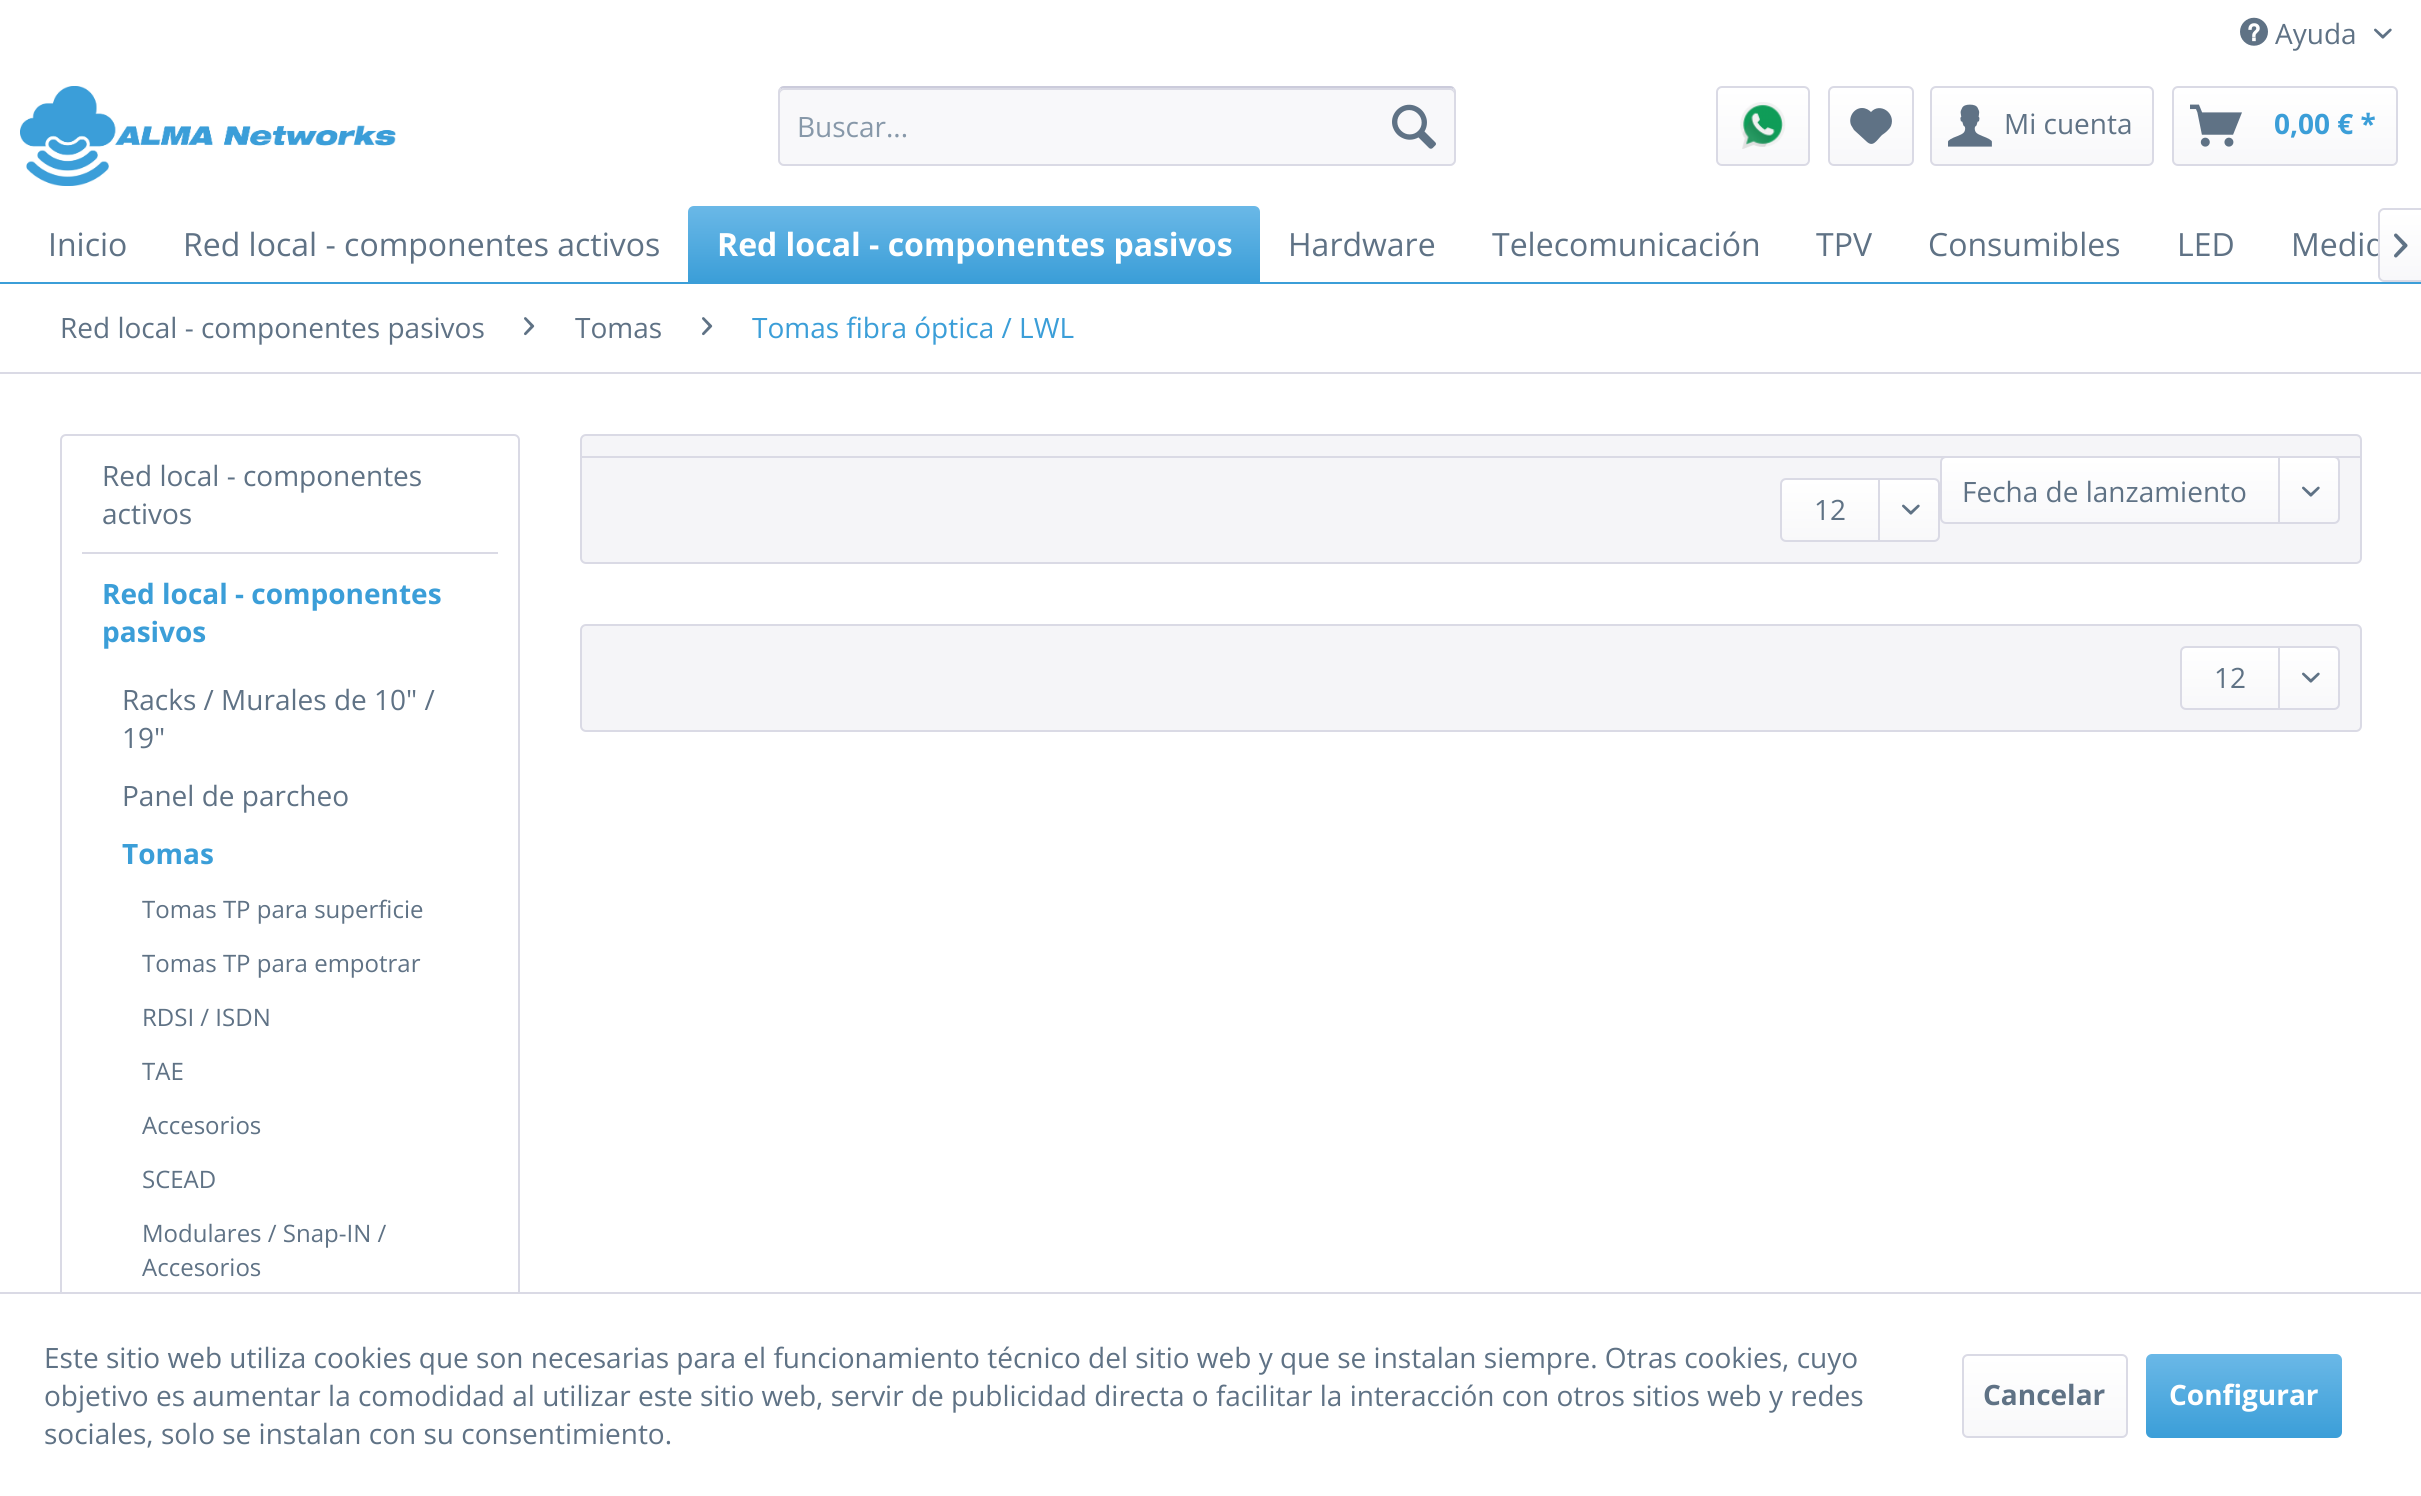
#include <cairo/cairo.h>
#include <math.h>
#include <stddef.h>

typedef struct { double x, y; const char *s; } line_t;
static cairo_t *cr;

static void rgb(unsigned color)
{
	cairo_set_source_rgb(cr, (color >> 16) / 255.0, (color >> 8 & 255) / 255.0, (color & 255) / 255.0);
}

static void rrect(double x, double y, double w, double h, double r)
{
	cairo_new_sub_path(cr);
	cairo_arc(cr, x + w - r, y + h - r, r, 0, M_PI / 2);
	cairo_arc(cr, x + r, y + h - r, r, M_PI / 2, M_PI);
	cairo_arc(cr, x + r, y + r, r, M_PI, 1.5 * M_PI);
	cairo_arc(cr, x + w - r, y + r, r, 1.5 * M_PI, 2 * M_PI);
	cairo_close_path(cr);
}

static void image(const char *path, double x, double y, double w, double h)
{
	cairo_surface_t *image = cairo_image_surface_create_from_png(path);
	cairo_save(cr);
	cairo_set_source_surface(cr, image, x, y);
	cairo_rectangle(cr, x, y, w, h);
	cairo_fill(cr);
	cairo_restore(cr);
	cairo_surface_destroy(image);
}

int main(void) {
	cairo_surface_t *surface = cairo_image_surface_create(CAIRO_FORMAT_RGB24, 2421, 1496);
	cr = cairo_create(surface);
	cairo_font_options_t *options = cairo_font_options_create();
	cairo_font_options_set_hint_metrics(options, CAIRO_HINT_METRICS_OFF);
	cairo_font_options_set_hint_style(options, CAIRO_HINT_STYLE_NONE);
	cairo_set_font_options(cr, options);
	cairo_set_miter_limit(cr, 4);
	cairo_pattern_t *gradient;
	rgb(0xffffff);
	cairo_paint(cr);
	image("img/1.png", 2240, 17, 28, 29);
	image("img/2.png", 2374, 28, 18, 11);
	image("img/3.png", 20, 86, 376, 100);
	rgb(0xf8f8fa);
	rrect(778, 86, 678, 80, 6);
	cairo_fill(cr);
	rgb(0xdadae5);
	cairo_new_path(cr);
	cairo_move_to(cr, 784, 90);
	cairo_line_to(cr, 1450, 90);
	cairo_curve_to(cr, 1452, 90, 1454, 92, 1454, 94);
	cairo_line_to(cr, 1454, 92);
	cairo_curve_to(cr, 1454, 90, 1452, 88, 1450, 88);
	cairo_line_to(cr, 784, 88);
	cairo_curve_to(cr, 782, 88, 780, 90, 780, 92);
	cairo_line_to(cr, 780, 94);
	cairo_curve_to(cr, 780, 92, 782, 90, 784, 90);
	cairo_close_path(cr);
	cairo_fill(cr);
	cairo_new_path(cr);
	cairo_move_to(cr, 780.5, 88.5);
	cairo_curve_to(cr, 781.5, 87.5, 782.5, 87, 784, 87);
	cairo_line_to(cr, 1450, 87);
	cairo_curve_to(cr, 1451.5, 87, 1452.5, 87.5, 1453.5, 88.5);
	rgb(0xcbcbdb);
	cairo_stroke(cr);
	cairo_new_path(cr);
	cairo_move_to(cr, 1453.5, 88.5);
	cairo_curve_to(cr, 1454.5, 89.5, 1455, 90.5, 1455, 92);
	cairo_line_to(cr, 1455, 160);
	cairo_curve_to(cr, 1455, 161.5, 1454.5, 162.5, 1453.5, 163.5);
	cairo_curve_to(cr, 1452.5, 164.5, 1451.5, 165, 1450, 165);
	cairo_line_to(cr, 784, 165);
	cairo_curve_to(cr, 782.5, 165, 781.5, 164.5, 780.5, 163.5);
	cairo_curve_to(cr, 779.5, 162.5, 779, 161.5, 779, 160);
	cairo_line_to(cr, 779, 92);
	cairo_curve_to(cr, 779, 90.5, 779.5, 89.5, 780.5, 88.5);
	rgb(0xdadae5);
	cairo_stroke(cr);
	image("img/4.png", 1392, 104, 44, 45);
	gradient = cairo_pattern_create_linear(1763, 88, 1763, 164);
	cairo_pattern_add_color_stop_rgba(gradient, 0, 1, 1, 1, 1);
	cairo_pattern_add_color_stop_rgba(gradient, 1, 0.973, 0.973, 0.98, 1);
	cairo_set_source(cr, gradient);
	cairo_pattern_destroy(gradient);
	rrect(1718, 88, 90, 76, 4);
	cairo_fill(cr);
	rrect(1717, 87, 92, 78, 5);
	rgb(0xdadae5);
	cairo_stroke(cr);
	image("img/5.png", 1740, 102, 46, 47);
	gradient = cairo_pattern_create_linear(1871, 88, 1871, 164);
	cairo_pattern_add_color_stop_rgba(gradient, 0, 1, 1, 1, 1);
	cairo_pattern_add_color_stop_rgba(gradient, 1, 0.973, 0.973, 0.98, 1);
	cairo_set_source(cr, gradient);
	cairo_pattern_destroy(gradient);
	rrect(1830, 88, 82, 76, 4);
	cairo_fill(cr);
	rrect(1829, 87, 84, 78, 5);
	rgb(0xdadae5);
	cairo_stroke(cr);
	rgb(0x5f7285);
	cairo_new_path(cr);
	cairo_move_to(cr, 1862, 108);
	cairo_curve_to(cr, 1854, 108, 1848, 117, 1851, 125);
	cairo_line_to(cr, 1854, 130);
	cairo_line_to(cr, 1866, 141);
	cairo_curve_to(cr, 1873, 148, 1876, 141, 1882, 135);
	cairo_curve_to(cr, 1885, 133, 1889, 130, 1891, 126);
	cairo_curve_to(cr, 1896, 113, 1880, 102, 1871, 112);
	cairo_curve_to(cr, 1869, 110, 1866, 108, 1862, 108);
	cairo_close_path(cr);
	cairo_fill(cr);
	gradient = cairo_pattern_create_linear(2042, 88, 2042, 164);
	cairo_pattern_add_color_stop_rgba(gradient, 0, 1, 1, 1, 1);
	cairo_pattern_add_color_stop_rgba(gradient, 1, 0.973, 0.973, 0.98, 1);
	cairo_set_source(cr, gradient);
	cairo_pattern_destroy(gradient);
	rrect(1932, 88, 220, 76, 4);
	cairo_fill(cr);
	rrect(1931, 87, 222, 78, 5);
	rgb(0xdadae5);
	cairo_stroke(cr);
	image("img/6.png", 1948, 104, 44, 43);
	gradient = cairo_pattern_create_linear(2285, 88, 2285, 164);
	cairo_pattern_add_color_stop_rgba(gradient, 0, 1, 1, 1, 1);
	cairo_pattern_add_color_stop_rgba(gradient, 1, 0.973, 0.973, 0.98, 1);
	cairo_set_source(cr, gradient);
	cairo_pattern_destroy(gradient);
	rrect(2174, 88, 222, 76, 4);
	cairo_fill(cr);
	rrect(2173, 87, 224, 78, 5);
	rgb(0xdadae5);
	cairo_stroke(cr);
	image("img/7.png", 2190, 104, 52, 43);
	rgb(0x3b9ed8);
	cairo_rectangle(cr, 0, 282, 2421, 2);
	cairo_fill(cr);
	gradient = cairo_pattern_create_linear(974, 206, 974, 282);
	cairo_pattern_add_color_stop_rgba(gradient, 0, 0.416, 0.722, 0.906, 1);
	cairo_pattern_add_color_stop_rgba(gradient, 1, 0.231, 0.62, 0.847, 1);
	cairo_set_source(cr, gradient);
	cairo_pattern_destroy(gradient);
	cairo_new_path(cr);
	cairo_move_to(cr, 694, 206);
	cairo_line_to(cr, 1254, 206);
	cairo_curve_to(cr, 1257.5, 206, 1260, 208.5, 1260, 212);
	cairo_line_to(cr, 1260, 282);
	cairo_line_to(cr, 688, 282);
	cairo_line_to(cr, 688, 212);
	cairo_curve_to(cr, 688, 208.5, 690.5, 206, 694, 206);
	cairo_close_path(cr);
	cairo_fill(cr);
	rgb(0xdadae5);
	cairo_rectangle(cr, 0, 372, 2421, 2);
	cairo_fill(cr);
	image("img/9.png", 524, 317, 11, 19);
	image("img/9.png", 702, 317, 11, 19);
	rrect(61, 435, 458, 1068, 5);
	cairo_stroke(cr);
	cairo_rectangle(cr, 82, 552, 416, 2);
	cairo_fill(cr);
	rgb(0xf5f5f8);
	rrect(581, 435, 1780, 128, 5);
	cairo_fill_preserve(cr);
	rgb(0xdadae5);
	cairo_stroke(cr);
	gradient = cairo_pattern_create_linear(2140, 458, 2140, 522);
	cairo_pattern_add_color_stop_rgba(gradient, 0, 1, 1, 1, 1);
	cairo_pattern_add_color_stop_rgba(gradient, 1, 0.973, 0.973, 0.98, 1);
	cairo_set_source(cr, gradient);
	cairo_pattern_destroy(gradient);
	rrect(1942, 458, 396, 64, 4);
	cairo_fill(cr);
	rgb(0xdadae5);
	cairo_rectangle(cr, 582, 456, 1778, 2);
	cairo_fill(cr);
	rrect(1941, 457, 398, 66, 5);
	cairo_stroke(cr);
	cairo_rectangle(cr, 2278, 458, 2, 66);
	cairo_fill(cr);
	image("img/10.png", 2302, 486, 18, 11);
	gradient = cairo_pattern_create_linear(1860, 480, 1860, 540);
	cairo_pattern_add_color_stop_rgba(gradient, 0, 1, 1, 1, 1);
	cairo_pattern_add_color_stop_rgba(gradient, 1, 0.973, 0.973, 0.98, 1);
	cairo_set_source(cr, gradient);
	cairo_pattern_destroy(gradient);
	rrect(1782, 480, 156, 60, 4);
	cairo_fill(cr);
	rrect(1781, 479, 158, 62, 5);
	rgb(0xdadae5);
	cairo_stroke(cr);
	cairo_rectangle(cr, 1878, 480, 2, 62);
	cairo_fill(cr);
	image("img/11.png", 1902, 504, 18, 11);
	rgb(0xf5f5f8);
	rrect(581, 625, 1780, 106, 5);
	cairo_fill_preserve(cr);
	rgb(0xdadae5);
	cairo_stroke(cr);
	gradient = cairo_pattern_create_linear(2260, 648, 2260, 708);
	cairo_pattern_add_color_stop_rgba(gradient, 0, 1, 1, 1, 1);
	cairo_pattern_add_color_stop_rgba(gradient, 1, 0.973, 0.973, 0.98, 1);
	cairo_set_source(cr, gradient);
	cairo_pattern_destroy(gradient);
	rrect(2182, 648, 156, 60, 4);
	cairo_fill(cr);
	rrect(2181, 647, 158, 62, 5);
	rgb(0xdadae5);
	cairo_stroke(cr);
	cairo_rectangle(cr, 2278, 648, 2, 62);
	cairo_fill(cr);
	image("img/11.png", 2302, 672, 18, 11);
	rgb(0xffffff);
	cairo_rectangle(cr, 60, 1294, 460, 202);
	cairo_fill(cr);
	rgb(0xdadae5);
	cairo_rectangle(cr, 0, 1292, 2421, 2);
	cairo_fill(cr);
	gradient = cairo_pattern_create_linear(2045, 1356, 2045, 1436);
	cairo_pattern_add_color_stop_rgba(gradient, 0, 1, 1, 1, 1);
	cairo_pattern_add_color_stop_rgba(gradient, 1, 0.973, 0.973, 0.98, 1);
	cairo_set_source(cr, gradient);
	cairo_pattern_destroy(gradient);
	rrect(1964, 1356, 162, 80, 4);
	cairo_fill(cr);
	rrect(1963, 1355, 164, 82, 5);
	rgb(0xdadae5);
	cairo_stroke(cr);
	gradient = cairo_pattern_create_linear(2244, 1354, 2244, 1438);
	cairo_pattern_add_color_stop_rgba(gradient, 0, 0.416, 0.722, 0.906, 1);
	cairo_pattern_add_color_stop_rgba(gradient, 1, 0.231, 0.62, 0.847, 1);
	cairo_set_source(cr, gradient);
	cairo_pattern_destroy(gradient);
	rrect(2146, 1354, 196, 84, 6);
	cairo_fill(cr);
	cairo_select_font_face(cr, "Open Sans", CAIRO_FONT_SLANT_NORMAL, CAIRO_FONT_WEIGHT_NORMAL);
	cairo_set_font_size(cr, 28);
	rgb(0x5f7285);
	cairo_move_to(cr, 2275, 44);
	cairo_show_text(cr, "Ayuda");
	rgb(0x8798a9);
	cairo_move_to(cr, 797, 137);
	cairo_show_text(cr, "Buscar...");
	rgb(0x5f7285);
	cairo_move_to(cr, 2004, 134);
	cairo_show_text(cr, "Mi cuenta");
	cairo_select_font_face(cr, "Open Sans", CAIRO_FONT_SLANT_NORMAL, CAIRO_FONT_WEIGHT_BOLD);
	rgb(0x3b9ed8);
	cairo_move_to(cr, 2274, 134);
	cairo_show_text(cr, "0,00 € *");
	cairo_select_font_face(cr, "Open Sans", CAIRO_FONT_SLANT_NORMAL, CAIRO_FONT_WEIGHT_NORMAL);
	cairo_set_font_size(cr, 32);
	rgb(0x5f7285);
	cairo_move_to(cr, 48, 256);
	cairo_show_text(cr, "Inicio");
	cairo_move_to(cr, 183, 256);
	cairo_show_text(cr, "Red local - componentes activos");
	cairo_select_font_face(cr, "Open Sans", CAIRO_FONT_SLANT_NORMAL, CAIRO_FONT_WEIGHT_BOLD);
	rgb(0xffffff);
	cairo_move_to(cr, 717, 256);
	cairo_show_text(cr, "Red local - componentes pasivos");
	cairo_select_font_face(cr, "Open Sans", CAIRO_FONT_SLANT_NORMAL, CAIRO_FONT_WEIGHT_NORMAL);
	rgb(0x5f7285);
	{
		static const line_t items[] = {
			{1288, 256, "Hardware"},
			{1492, 256, "Telecomunicación"},
			{1816, 256, "TPV"},
			{1928, 256, "Consumibles"},
			{2177, 256, "LED"},
			{2291, 256, "Medid"},
		};
		for (size_t i = 0; i < sizeof items / sizeof *items; i++) {
			cairo_move_to(cr, items[i].x, items[i].y);
			cairo_show_text(cr, items[i].s);
		}
	}
	gradient = cairo_pattern_create_linear(2401, 210, 2401, 280);
	cairo_pattern_add_color_stop_rgba(gradient, 0, 1, 1, 1, 1);
	cairo_pattern_add_color_stop_rgba(gradient, 1, 0.973, 0.973, 0.98, 1);
	cairo_set_source(cr, gradient);
	cairo_pattern_destroy(gradient);
	cairo_new_path(cr);
	cairo_move_to(cr, 2384, 210);
	cairo_line_to(cr, 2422, 210);
	cairo_line_to(cr, 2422, 280);
	cairo_line_to(cr, 2384, 280);
	cairo_curve_to(cr, 2382, 280, 2380, 278, 2380, 276);
	cairo_line_to(cr, 2380, 214);
	cairo_curve_to(cr, 2380, 212, 2382, 210, 2384, 210);
	cairo_close_path(cr);
	cairo_fill(cr);
	rgb(0xdadae5);
	cairo_set_fill_rule(cr, CAIRO_FILL_RULE_EVEN_ODD);
	cairo_new_path(cr);
	cairo_move_to(cr, 2384, 208);
	cairo_line_to(cr, 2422, 208);
	cairo_line_to(cr, 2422, 282);
	cairo_line_to(cr, 2384, 282);
	cairo_curve_to(cr, 2381, 282, 2378, 279, 2378, 276);
	cairo_line_to(cr, 2378, 214);
	cairo_curve_to(cr, 2378, 211, 2381, 208, 2384, 208);
	cairo_close_path(cr);
	cairo_move_to(cr, 2384, 210);
	cairo_line_to(cr, 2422, 210);
	cairo_line_to(cr, 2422, 280);
	cairo_line_to(cr, 2384, 280);
	cairo_curve_to(cr, 2382, 280, 2380, 278, 2380, 276);
	cairo_line_to(cr, 2380, 214);
	cairo_curve_to(cr, 2380, 212, 2382, 210, 2384, 210);
	cairo_close_path(cr);
	cairo_fill(cr);
	image("img/8.png", 2394, 233, 14, 25);
	cairo_set_font_size(cr, 28);
	rgb(0x5f7285);
	cairo_move_to(cr, 60, 338);
	cairo_show_text(cr, "Red local - componentes pasivos");
	cairo_move_to(cr, 575, 338);
	cairo_show_text(cr, "Tomas");
	rgb(0x3b9ed8);
	cairo_move_to(cr, 752, 338);
	cairo_show_text(cr, "Tomas fibra óptica / LWL");
	rgb(0x5f7285);
	cairo_move_to(cr, 102, 486);
	cairo_show_text(cr, "Red local - componentes");
	cairo_move_to(cr, 102, 524);
	cairo_show_text(cr, "activos");
	cairo_select_font_face(cr, "Open Sans", CAIRO_FONT_SLANT_NORMAL, CAIRO_FONT_WEIGHT_BOLD);
	rgb(0x3b9ed8);
	cairo_move_to(cr, 102, 604);
	cairo_show_text(cr, "Red local - componentes");
	cairo_move_to(cr, 102, 642);
	cairo_show_text(cr, "pasivos");
	cairo_select_font_face(cr, "Open Sans", CAIRO_FONT_SLANT_NORMAL, CAIRO_FONT_WEIGHT_NORMAL);
	rgb(0x5f7285);
	{
		static const line_t items[] = {
			{122, 710, "Racks / Murales de 10\" /"},
			{122, 748, "19\""},
			{122, 806, "Panel de parcheo"},
		};
		for (size_t i = 0; i < sizeof items / sizeof *items; i++) {
			cairo_move_to(cr, items[i].x, items[i].y);
			cairo_show_text(cr, items[i].s);
		}
	}
	cairo_select_font_face(cr, "Open Sans", CAIRO_FONT_SLANT_NORMAL, CAIRO_FONT_WEIGHT_BOLD);
	rgb(0x3b9ed8);
	cairo_move_to(cr, 122, 864);
	cairo_show_text(cr, "Tomas");
	cairo_select_font_face(cr, "Open Sans", CAIRO_FONT_SLANT_NORMAL, CAIRO_FONT_WEIGHT_NORMAL);
	cairo_set_font_size(cr, 24);
	rgb(0x5f7285);
	{
		static const line_t items[] = {
			{142, 918, "Tomas TP para superficie"},
			{142, 972, "Tomas TP para empotrar"},
			{142, 1026, "RDSI / ISDN"},
			{142, 1080, "TAE"},
			{142, 1134, "Accesorios"},
			{142, 1188, "SCEAD"},
			{142, 1242, "Modulares / Snap-IN /"},
			{142, 1276, "Accesorios"},
		};
		for (size_t i = 0; i < sizeof items / sizeof *items; i++) {
			cairo_move_to(cr, items[i].x, items[i].y);
			cairo_show_text(cr, items[i].s);
		}
	}
	cairo_set_font_size(cr, 28);
	{
		static const line_t items[] = {
			{1962, 502, "Fecha de lanzamiento"},
			{1814, 520, "12"},
			{2214, 688, "12"},
			{44, 1368, "Este sitio web utiliza cookies que son necesarias para el funcionamiento técnico del sitio web y que se instalan siempre. Otras cookies, cuyo"},
			{44, 1406, "objetivo es aumentar la comodidad al utilizar este sitio web, servir de publicidad directa o facilitar la interacción con otros sitios web y redes"},
			{44, 1444, "sociales, solo se instalan con su consentimiento."},
		};
		for (size_t i = 0; i < sizeof items / sizeof *items; i++) {
			cairo_move_to(cr, items[i].x, items[i].y);
			cairo_show_text(cr, items[i].s);
		}
	}
	cairo_select_font_face(cr, "Open Sans", CAIRO_FONT_SLANT_NORMAL, CAIRO_FONT_WEIGHT_BOLD);
	cairo_move_to(cr, 1983, 1405);
	cairo_show_text(cr, "Cancelar");
	rgb(0xffffff);
	cairo_move_to(cr, 2169, 1405);
	cairo_show_text(cr, "Configurar");
	cairo_surface_write_to_png(surface, "page.png");
	cairo_font_options_destroy(options);
	cairo_destroy(cr);
	cairo_surface_destroy(surface);
	return 0;
}
